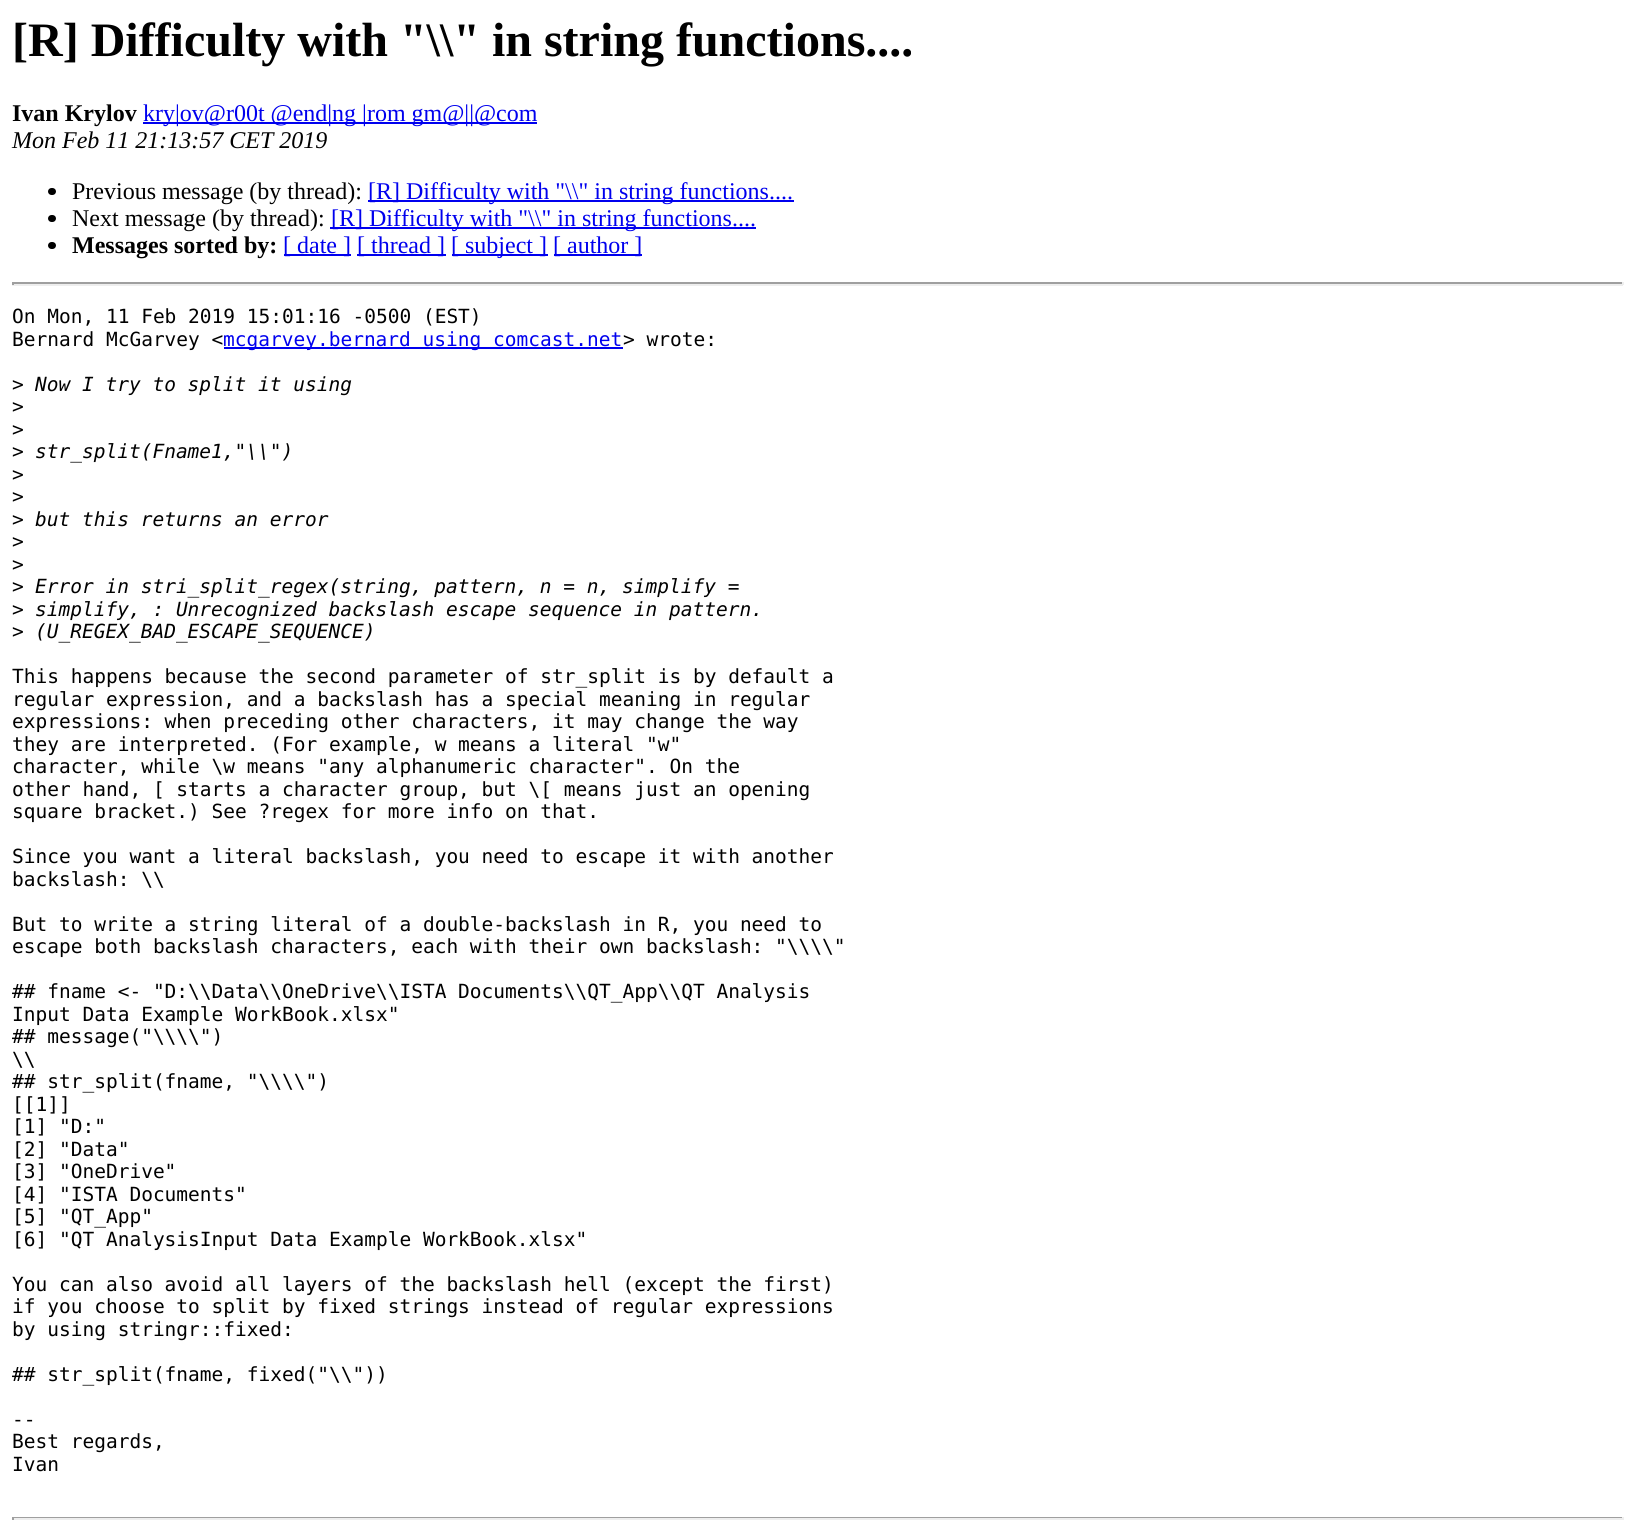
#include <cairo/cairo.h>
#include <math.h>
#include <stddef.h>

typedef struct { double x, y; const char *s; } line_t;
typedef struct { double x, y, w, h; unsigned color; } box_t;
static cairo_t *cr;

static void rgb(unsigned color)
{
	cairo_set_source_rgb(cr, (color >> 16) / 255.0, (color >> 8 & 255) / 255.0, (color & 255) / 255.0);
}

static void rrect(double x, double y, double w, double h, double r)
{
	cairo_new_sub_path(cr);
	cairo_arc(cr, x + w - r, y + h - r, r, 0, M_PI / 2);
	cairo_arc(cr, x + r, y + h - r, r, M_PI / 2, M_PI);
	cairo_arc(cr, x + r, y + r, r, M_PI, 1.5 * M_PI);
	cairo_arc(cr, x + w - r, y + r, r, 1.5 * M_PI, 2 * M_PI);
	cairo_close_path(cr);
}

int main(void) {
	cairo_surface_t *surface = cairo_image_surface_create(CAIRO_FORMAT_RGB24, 1635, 1538);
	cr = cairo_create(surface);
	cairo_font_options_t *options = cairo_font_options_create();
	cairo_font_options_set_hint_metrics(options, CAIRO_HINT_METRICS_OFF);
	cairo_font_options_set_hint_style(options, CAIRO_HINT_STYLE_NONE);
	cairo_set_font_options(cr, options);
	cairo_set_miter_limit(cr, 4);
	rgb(0xffffff);
	cairo_paint(cr);
	rgb(0x0000ee);
	cairo_rectangle(cr, 143, 122, 394, 2);
	cairo_fill(cr);
	rgb(0x000000);
	rrect(48, 188, 8, 7, 3.5);
	cairo_fill(cr);
	rgb(0x0000ee);
	cairo_rectangle(cr, 368, 200, 426, 2);
	cairo_fill(cr);
	rgb(0x000000);
	rrect(48, 215, 8, 7, 3.5);
	cairo_fill(cr);
	rgb(0x0000ee);
	cairo_rectangle(cr, 330, 227, 426, 2);
	cairo_fill(cr);
	rgb(0x000000);
	rrect(48, 242, 8, 7, 3.5);
	cairo_fill(cr);
	{
		static const box_t items[] = {
			{284, 254, 67, 2, 0x0000ee},
			{357, 254, 89, 2, 0x0000ee},
			{452, 254, 96, 2, 0x0000ee},
			{554, 254, 88, 2, 0x0000ee},
			{12, 282, 1611, 2, 0x9f9f9f},
			{1622, 282, 2, 3, 0xeeeeee},
			{12, 284, 1611, 2, 0xeeeeee},
			{12, 282, 2, 3, 0x9f9f9f},
			{224, 347, 399, 2, 0x0000ee},
			{12, 1517, 1611, 1, 0x9f9f9f},
			{1622, 1517, 2, 3, 0xeeeeee},
			{12, 1518, 1611, 2, 0xeeeeee},
			{12, 1517, 2, 3, 0x9f9f9f},
		};
		for (size_t i = 0; i < sizeof items / sizeof *items; i++) {
			rgb(items[i].color);
			cairo_rectangle(cr, items[i].x, items[i].y, items[i].w, items[i].h);
			cairo_fill(cr);
		}
	}
	cairo_select_font_face(cr, "Liberation Serif", CAIRO_FONT_SLANT_NORMAL, CAIRO_FONT_WEIGHT_BOLD);
	cairo_set_font_size(cr, 48);
	rgb(0x000000);
	cairo_move_to(cr, 12, 56);
	cairo_show_text(cr, "[R] Difficulty with \"\\\\\" in string functions....");
	cairo_set_font_size(cr, 24);
	cairo_move_to(cr, 12, 121);
	cairo_show_text(cr, "Ivan Krylov");
	cairo_select_font_face(cr, "Liberation Serif", CAIRO_FONT_SLANT_NORMAL, CAIRO_FONT_WEIGHT_NORMAL);
	rgb(0x0000ee);
	cairo_move_to(cr, 143, 121);
	cairo_show_text(cr, "kry|ov@r00t @end|ng |rom gm@||@com");
	cairo_select_font_face(cr, "Liberation Serif", CAIRO_FONT_SLANT_ITALIC, CAIRO_FONT_WEIGHT_NORMAL);
	rgb(0x000000);
	cairo_move_to(cr, 12, 148);
	cairo_show_text(cr, "Mon Feb 11 21:13:57 CET 2019");
	cairo_select_font_face(cr, "Liberation Serif", CAIRO_FONT_SLANT_NORMAL, CAIRO_FONT_WEIGHT_NORMAL);
	cairo_move_to(cr, 72, 199);
	cairo_show_text(cr, "Previous message (by thread):");
	rgb(0x0000ee);
	cairo_move_to(cr, 368, 199);
	cairo_show_text(cr, "[R] Difficulty with \"\\\\\" in string functions....");
	rgb(0x000000);
	cairo_move_to(cr, 72, 226);
	cairo_show_text(cr, "Next message (by thread):");
	rgb(0x0000ee);
	cairo_move_to(cr, 331, 226);
	cairo_show_text(cr, "[R] Difficulty with \"\\\\\" in string functions....");
	cairo_select_font_face(cr, "Liberation Serif", CAIRO_FONT_SLANT_NORMAL, CAIRO_FONT_WEIGHT_BOLD);
	rgb(0x000000);
	cairo_move_to(cr, 72, 253);
	cairo_show_text(cr, "Messages sorted by:");
	cairo_select_font_face(cr, "Liberation Serif", CAIRO_FONT_SLANT_NORMAL, CAIRO_FONT_WEIGHT_NORMAL);
	rgb(0x0000ee);
	{
		static const line_t items[] = {
			{283, 253, "[ date ]"},
			{357, 253, "[ thread ]"},
			{451, 253, "[ subject ]"},
			{553, 253, "[ author ]"},
		};
		for (size_t i = 0; i < sizeof items / sizeof *items; i++) {
			cairo_move_to(cr, items[i].x, items[i].y);
			cairo_show_text(cr, items[i].s);
		}
	}
	cairo_select_font_face(cr, "DejaVu Sans Mono", CAIRO_FONT_SLANT_NORMAL, CAIRO_FONT_WEIGHT_NORMAL);
	cairo_set_font_size(cr, 19.5);
	rgb(0x000000);
	cairo_move_to(cr, 12, 323);
	cairo_show_text(cr, "On Mon, 11 Feb 2019 15:01:16 -0500 (EST)");
	cairo_move_to(cr, 12, 346);
	cairo_show_text(cr, "Bernard McGarvey <");
	rgb(0x0000ee);
	cairo_move_to(cr, 223, 346);
	cairo_show_text(cr, "mcgarvey.bernard using comcast.net");
	rgb(0x000000);
	cairo_move_to(cr, 623, 346);
	cairo_show_text(cr, "> wrote:");
	cairo_move_to(cr, 12, 391);
	cairo_show_text(cr, ">");
	cairo_select_font_face(cr, "DejaVu Sans Mono", CAIRO_FONT_SLANT_ITALIC, CAIRO_FONT_WEIGHT_NORMAL);
	cairo_move_to(cr, 35, 391);
	cairo_show_text(cr, "Now I try to split it using");
	cairo_select_font_face(cr, "DejaVu Sans Mono", CAIRO_FONT_SLANT_NORMAL, CAIRO_FONT_WEIGHT_NORMAL);
	{
		static const line_t items[] = {
			{12, 413, ">"},
			{12, 436, ">"},
			{12, 458, ">"},
		};
		for (size_t i = 0; i < sizeof items / sizeof *items; i++) {
			cairo_move_to(cr, items[i].x, items[i].y);
			cairo_show_text(cr, items[i].s);
		}
	}
	cairo_select_font_face(cr, "DejaVu Sans Mono", CAIRO_FONT_SLANT_ITALIC, CAIRO_FONT_WEIGHT_NORMAL);
	cairo_move_to(cr, 35, 458);
	cairo_show_text(cr, "str_split(Fname1,\"\\\\\")");
	cairo_select_font_face(cr, "DejaVu Sans Mono", CAIRO_FONT_SLANT_NORMAL, CAIRO_FONT_WEIGHT_NORMAL);
	{
		static const line_t items[] = {
			{12, 481, ">"},
			{12, 503, ">"},
			{12, 526, ">"},
		};
		for (size_t i = 0; i < sizeof items / sizeof *items; i++) {
			cairo_move_to(cr, items[i].x, items[i].y);
			cairo_show_text(cr, items[i].s);
		}
	}
	cairo_select_font_face(cr, "DejaVu Sans Mono", CAIRO_FONT_SLANT_ITALIC, CAIRO_FONT_WEIGHT_NORMAL);
	cairo_move_to(cr, 35, 526);
	cairo_show_text(cr, "but this returns an error");
	cairo_select_font_face(cr, "DejaVu Sans Mono", CAIRO_FONT_SLANT_NORMAL, CAIRO_FONT_WEIGHT_NORMAL);
	{
		static const line_t items[] = {
			{12, 548, ">"},
			{12, 571, ">"},
			{12, 593, ">"},
		};
		for (size_t i = 0; i < sizeof items / sizeof *items; i++) {
			cairo_move_to(cr, items[i].x, items[i].y);
			cairo_show_text(cr, items[i].s);
		}
	}
	cairo_select_font_face(cr, "DejaVu Sans Mono", CAIRO_FONT_SLANT_ITALIC, CAIRO_FONT_WEIGHT_NORMAL);
	cairo_move_to(cr, 35, 593);
	cairo_show_text(cr, "Error in stri_split_regex(string, pattern, n = n, simplify =");
	cairo_select_font_face(cr, "DejaVu Sans Mono", CAIRO_FONT_SLANT_NORMAL, CAIRO_FONT_WEIGHT_NORMAL);
	cairo_move_to(cr, 12, 616);
	cairo_show_text(cr, ">");
	cairo_select_font_face(cr, "DejaVu Sans Mono", CAIRO_FONT_SLANT_ITALIC, CAIRO_FONT_WEIGHT_NORMAL);
	cairo_move_to(cr, 35, 616);
	cairo_show_text(cr, "simplify, : Unrecognized backslash escape sequence in pattern.");
	cairo_select_font_face(cr, "DejaVu Sans Mono", CAIRO_FONT_SLANT_NORMAL, CAIRO_FONT_WEIGHT_NORMAL);
	cairo_move_to(cr, 12, 638);
	cairo_show_text(cr, ">");
	cairo_select_font_face(cr, "DejaVu Sans Mono", CAIRO_FONT_SLANT_ITALIC, CAIRO_FONT_WEIGHT_NORMAL);
	cairo_move_to(cr, 35, 638);
	cairo_show_text(cr, "(U_REGEX_BAD_ESCAPE_SEQUENCE)");
	cairo_select_font_face(cr, "DejaVu Sans Mono", CAIRO_FONT_SLANT_NORMAL, CAIRO_FONT_WEIGHT_NORMAL);
	{
		static const line_t items[] = {
			{12, 683, "This happens because the second parameter of str_split is by default a"},
			{12, 706, "regular expression, and a backslash has a special meaning in regular"},
			{12, 728, "expressions: when preceding other characters, it may change the way"},
			{12, 751, "they are interpreted. (For example, w means a literal \"w\""},
			{12, 773, "character, while \\w means \"any alphanumeric character\". On the"},
			{12, 796, "other hand, [ starts a character group, but \\[ means just an opening"},
			{12, 818, "square bracket.) See ?regex for more info on that."},
			{12, 863, "Since you want a literal backslash, you need to escape it with another"},
			{12, 886, "backslash: \\\\"},
			{12, 931, "But to write a string literal of a double-backslash in R, you need to"},
			{12, 953, "escape both backslash characters, each with their own backslash: \"\\\\\\\\\""},
			{12, 998, "## fname <- \"D:\\\\Data\\\\OneDrive\\\\ISTA Documents\\\\QT_App\\\\QT Analysis"},
			{12, 1021, "Input Data Example WorkBook.xlsx\""},
			{12, 1043, "## message(\"\\\\\\\\\")"},
			{12, 1066, "\\\\"},
			{12, 1088, "## str_split(fname, \"\\\\\\\\\")"},
			{12, 1111, "[[1]]"},
			{12, 1133, "[1] \"D:\""},
			{12, 1156, "[2] \"Data\""},
			{12, 1178, "[3] \"OneDrive\""},
			{12, 1201, "[4] \"ISTA Documents\""},
			{12, 1223, "[5] \"QT_App\""},
			{12, 1246, "[6] \"QT AnalysisInput Data Example WorkBook.xlsx\""},
			{12, 1291, "You can also avoid all layers of the backslash hell (except the first)"},
			{12, 1313, "if you choose to split by fixed strings instead of regular expressions"},
			{12, 1336, "by using stringr::fixed:"},
			{12, 1381, "## str_split(fname, fixed(\"\\\\\"))"},
			{12, 1426, "--"},
			{12, 1448, "Best regards,"},
			{12, 1471, "Ivan"},
		};
		for (size_t i = 0; i < sizeof items / sizeof *items; i++) {
			cairo_move_to(cr, items[i].x, items[i].y);
			cairo_show_text(cr, items[i].s);
		}
	}
	cairo_surface_write_to_png(surface, "page.png");
	cairo_font_options_destroy(options);
	cairo_destroy(cr);
	cairo_surface_destroy(surface);
	return 0;
}
